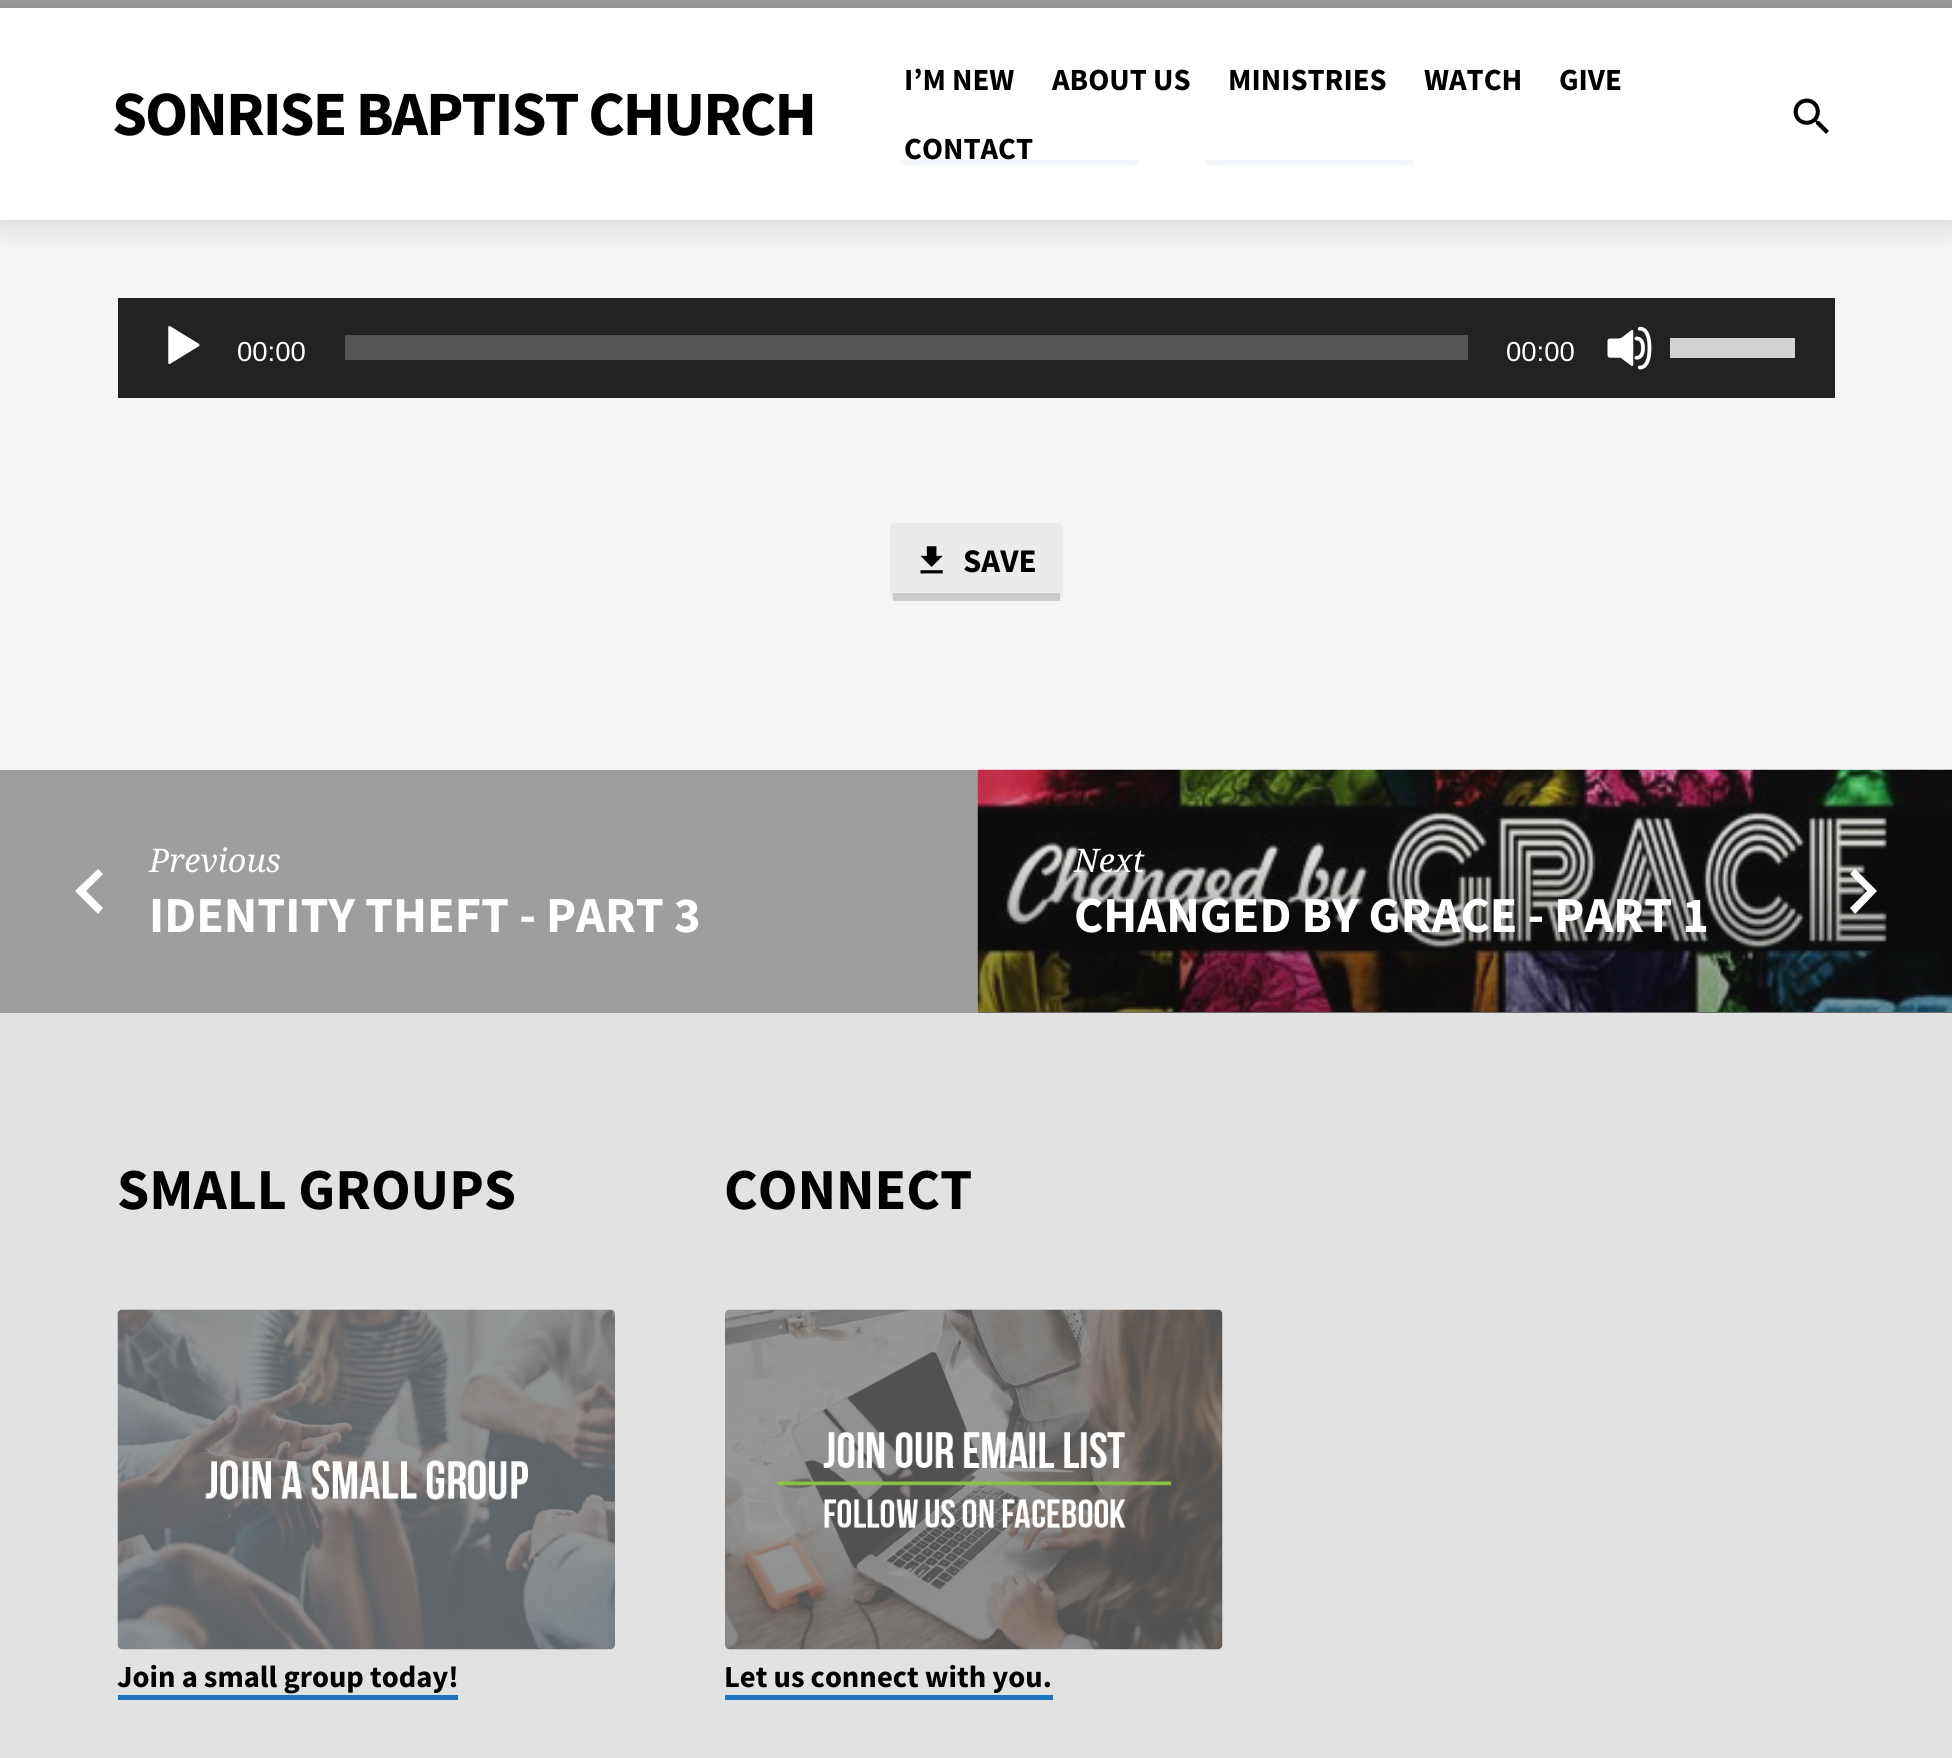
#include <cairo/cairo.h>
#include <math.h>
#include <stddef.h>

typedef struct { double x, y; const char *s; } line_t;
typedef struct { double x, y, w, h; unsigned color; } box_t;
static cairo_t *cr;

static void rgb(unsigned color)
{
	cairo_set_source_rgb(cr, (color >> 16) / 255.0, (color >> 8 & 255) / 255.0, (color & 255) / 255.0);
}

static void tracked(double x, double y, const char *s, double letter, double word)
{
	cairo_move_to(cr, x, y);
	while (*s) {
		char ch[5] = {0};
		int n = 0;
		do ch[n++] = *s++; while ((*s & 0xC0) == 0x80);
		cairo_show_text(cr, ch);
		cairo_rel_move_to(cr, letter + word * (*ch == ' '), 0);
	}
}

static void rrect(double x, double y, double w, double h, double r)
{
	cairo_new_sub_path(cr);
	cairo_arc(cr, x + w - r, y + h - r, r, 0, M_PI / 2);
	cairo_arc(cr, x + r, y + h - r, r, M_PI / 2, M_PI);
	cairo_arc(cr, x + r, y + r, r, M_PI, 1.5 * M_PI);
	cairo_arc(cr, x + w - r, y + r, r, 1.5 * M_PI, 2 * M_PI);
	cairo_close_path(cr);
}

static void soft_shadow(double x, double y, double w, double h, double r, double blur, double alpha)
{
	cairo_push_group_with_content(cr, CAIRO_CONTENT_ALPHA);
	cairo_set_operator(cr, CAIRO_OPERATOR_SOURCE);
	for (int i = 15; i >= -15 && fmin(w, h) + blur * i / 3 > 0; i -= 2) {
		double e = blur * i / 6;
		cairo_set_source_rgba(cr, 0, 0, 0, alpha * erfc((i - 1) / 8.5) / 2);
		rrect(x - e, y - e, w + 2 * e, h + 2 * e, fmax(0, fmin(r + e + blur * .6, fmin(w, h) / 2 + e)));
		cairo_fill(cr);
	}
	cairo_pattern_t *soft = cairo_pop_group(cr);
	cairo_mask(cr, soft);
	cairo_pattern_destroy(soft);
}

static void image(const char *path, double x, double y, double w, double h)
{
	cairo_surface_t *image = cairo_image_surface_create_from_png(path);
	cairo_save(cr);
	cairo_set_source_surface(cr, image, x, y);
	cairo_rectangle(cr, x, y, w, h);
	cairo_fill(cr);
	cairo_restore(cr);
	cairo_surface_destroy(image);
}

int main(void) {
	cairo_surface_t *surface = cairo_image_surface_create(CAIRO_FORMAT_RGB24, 1952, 1758);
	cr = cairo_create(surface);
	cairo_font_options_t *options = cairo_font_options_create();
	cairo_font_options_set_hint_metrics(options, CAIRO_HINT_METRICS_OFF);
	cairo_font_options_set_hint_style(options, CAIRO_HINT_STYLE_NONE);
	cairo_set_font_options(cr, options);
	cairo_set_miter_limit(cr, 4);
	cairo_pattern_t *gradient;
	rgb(0xf5f5f5);
	cairo_paint(cr);
	{
		static const box_t items[] = {
			{0, 8, 1952, 212, 0xffffff},
			{0, 0, 1952, 8, 0x9e9e9e},
			{900, 160, 238, 5, 0xf4f8fc},
			{1205, 160, 208, 5, 0xf4f8fc},
		};
		for (size_t i = 0; i < sizeof items / sizeof *items; i++) {
			rgb(items[i].color);
			cairo_rectangle(cr, items[i].x, items[i].y, items[i].w, items[i].h);
			cairo_fill(cr);
		}
	}
	cairo_save(cr);
	cairo_set_fill_rule(cr, CAIRO_FILL_RULE_EVEN_ODD);
	cairo_new_path(cr);
	cairo_move_to(cr, 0, 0);
	cairo_line_to(cr, 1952, 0);
	cairo_line_to(cr, 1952, 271);
	cairo_line_to(cr, 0, 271);
	cairo_close_path(cr);
	cairo_move_to(cr, 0, 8);
	cairo_line_to(cr, 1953, 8);
	cairo_line_to(cr, 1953, 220);
	cairo_line_to(cr, 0, 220);
	cairo_close_path(cr);
	cairo_clip(cr);
	rgb(0x000000);
	soft_shadow(0, 13, 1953, 212, 0, 15, 0.14);
	cairo_restore(cr);
	image("img/1.png", 1793, 98, 36, 36);
	rgb(0x222222);
	cairo_rectangle(cr, 118, 298, 1717, 100);
	cairo_fill(cr);
	image("img/2.png", 168, 326, 32, 39);
	rgb(0x555555);
	cairo_rectangle(cr, 345, 335, 1123, 25);
	cairo_fill(cr);
	image("img/3.png", 1607, 326, 45, 44);
	rgb(0xd2d2d2);
	cairo_rectangle(cr, 1670, 338, 125, 20);
	cairo_fill(cr);
	rgb(0xebebeb);
	rrect(890, 523, 173, 77, 5);
	cairo_fill(cr);
	cairo_set_source_rgba(cr, 0.196, 0.196, 0.196, 0.18);
	cairo_rectangle(cr, 893, 593, 167, 8);
	cairo_fill(cr);
	image("img/4.png", 920, 546, 23, 28);
	rgb(0x9e9e9e);
	cairo_rectangle(cr, 0, 770, 978, 243);
	cairo_fill(cr);
	rgb(0x8f8f8f);
	cairo_rectangle(cr, 978, 770, 974, 243);
	cairo_fill(cr);
	rgb(0xffffff);
	cairo_new_path(cr);
	cairo_move_to(cr, 103, 908);
	cairo_line_to(cr, 86, 891);
	cairo_line_to(cr, 103, 874);
	cairo_line_to(cr, 98, 869);
	cairo_line_to(cr, 75, 891);
	cairo_line_to(cr, 98, 914);
	cairo_close_path(cr);
	cairo_fill(cr);
	image("img/5.png", 977, 769, 975, 243);
	gradient = cairo_pattern_create_linear(1471, 770, 1471, 1013);
	cairo_pattern_add_color_stop_rgba(gradient, 0, 0.024, 0.024, 0.024, 0);
	cairo_pattern_add_color_stop_rgba(gradient, 0.36, 0.024, 0.024, 0.024, 0);
	cairo_pattern_add_color_stop_rgba(gradient, 0.76, 0.024, 0.024, 0.024, 0.28);
	cairo_pattern_add_color_stop_rgba(gradient, 1, 0.024, 0.024, 0.024, 0.28);
	cairo_set_source(cr, gradient);
	cairo_pattern_destroy(gradient);
	cairo_rectangle(cr, 978, 865, 974, 148);
	cairo_fill(cr);
	rgb(0xffffff);
	cairo_new_path(cr);
	cairo_move_to(cr, 1850, 908);
	cairo_line_to(cr, 1867, 891);
	cairo_line_to(cr, 1850, 874);
	cairo_line_to(cr, 1855, 869);
	cairo_line_to(cr, 1877, 891);
	cairo_line_to(cr, 1855, 914);
	cairo_close_path(cr);
	cairo_fill(cr);
	rgb(0xe2e2e2);
	cairo_rectangle(cr, 0, 1013, 1952, 745);
	cairo_fill(cr);
	image("img/6.png", 117, 1309, 498, 341);
	rgb(0x1e73be);
	cairo_rectangle(cr, 118, 1695, 340, 5);
	cairo_fill(cr);
	image("img/7.png", 725, 1309, 498, 341);
	cairo_rectangle(cr, 725, 1695, 328, 5);
	cairo_fill(cr);
	cairo_select_font_face(cr, "Source Sans Pro", CAIRO_FONT_SLANT_NORMAL, CAIRO_FONT_WEIGHT_BOLD);
	cairo_set_font_size(cr, 63);
	rgb(0x000000);
	tracked(112, 135, "SONRISE BAPTIST CHURCH", -2, 0);
	cairo_set_font_size(cr, 30.75);
	{
		static const line_t items[] = {
			{904, 90, "I’M NEW"},
			{1052, 90, "ABOUT US"},
			{1228, 90, "MINISTRIES"},
			{1424, 90, "WATCH"},
			{1559, 90, "GIVE"},
			{904, 159, "CONTACT"},
		};
		for (size_t i = 0; i < sizeof items / sizeof *items; i++) {
			cairo_move_to(cr, items[i].x, items[i].y);
			cairo_show_text(cr, items[i].s);
		}
	}
	cairo_select_font_face(cr, "Liberation Sans", CAIRO_FONT_SLANT_NORMAL, CAIRO_FONT_WEIGHT_NORMAL);
	cairo_set_font_size(cr, 27.5);
	rgb(0xffffff);
	cairo_move_to(cr, 237, 361);
	cairo_show_text(cr, "00:00");
	cairo_move_to(cr, 1506, 361);
	cairo_show_text(cr, "00:00");
	cairo_select_font_face(cr, "Source Sans Pro", CAIRO_FONT_SLANT_NORMAL, CAIRO_FONT_WEIGHT_BOLD);
	cairo_set_font_size(cr, 33);
	rgb(0x000000);
	cairo_move_to(cr, 963, 572);
	cairo_show_text(cr, "SAVE");
	cairo_select_font_face(cr, "Noto Serif", CAIRO_FONT_SLANT_ITALIC, CAIRO_FONT_WEIGHT_NORMAL);
	cairo_set_font_size(cr, 32.5);
	rgb(0xffffff);
	cairo_move_to(cr, 149, 872);
	cairo_show_text(cr, "Previous");
	cairo_select_font_face(cr, "Source Sans Pro", CAIRO_FONT_SLANT_NORMAL, CAIRO_FONT_WEIGHT_BOLD);
	cairo_set_font_size(cr, 50.4);
	cairo_move_to(cr, 149, 932);
	cairo_show_text(cr, "IDENTITY THEFT - PART 3");
	cairo_select_font_face(cr, "Noto Serif", CAIRO_FONT_SLANT_ITALIC, CAIRO_FONT_WEIGHT_NORMAL);
	cairo_set_font_size(cr, 32.5);
	cairo_move_to(cr, 1074, 872);
	cairo_show_text(cr, "Next");
	cairo_select_font_face(cr, "Source Sans Pro", CAIRO_FONT_SLANT_NORMAL, CAIRO_FONT_WEIGHT_BOLD);
	cairo_set_font_size(cr, 50.4);
	cairo_move_to(cr, 1074, 932);
	cairo_show_text(cr, "CHANGED BY GRACE - PART 1");
	cairo_set_font_size(cr, 58);
	rgb(0x000000);
	cairo_move_to(cr, 117, 1209);
	cairo_show_text(cr, "SMALL GROUPS");
	cairo_set_font_size(cr, 30.6);
	cairo_move_to(cr, 117, 1687);
	cairo_show_text(cr, "Join a small group today!");
	cairo_set_font_size(cr, 58);
	cairo_move_to(cr, 724, 1209);
	cairo_show_text(cr, "CONNECT");
	cairo_set_font_size(cr, 30.6);
	cairo_move_to(cr, 724, 1687);
	cairo_show_text(cr, "Let us connect with you.");
	cairo_surface_write_to_png(surface, "page.png");
	cairo_font_options_destroy(options);
	cairo_destroy(cr);
	cairo_surface_destroy(surface);
	return 0;
}
